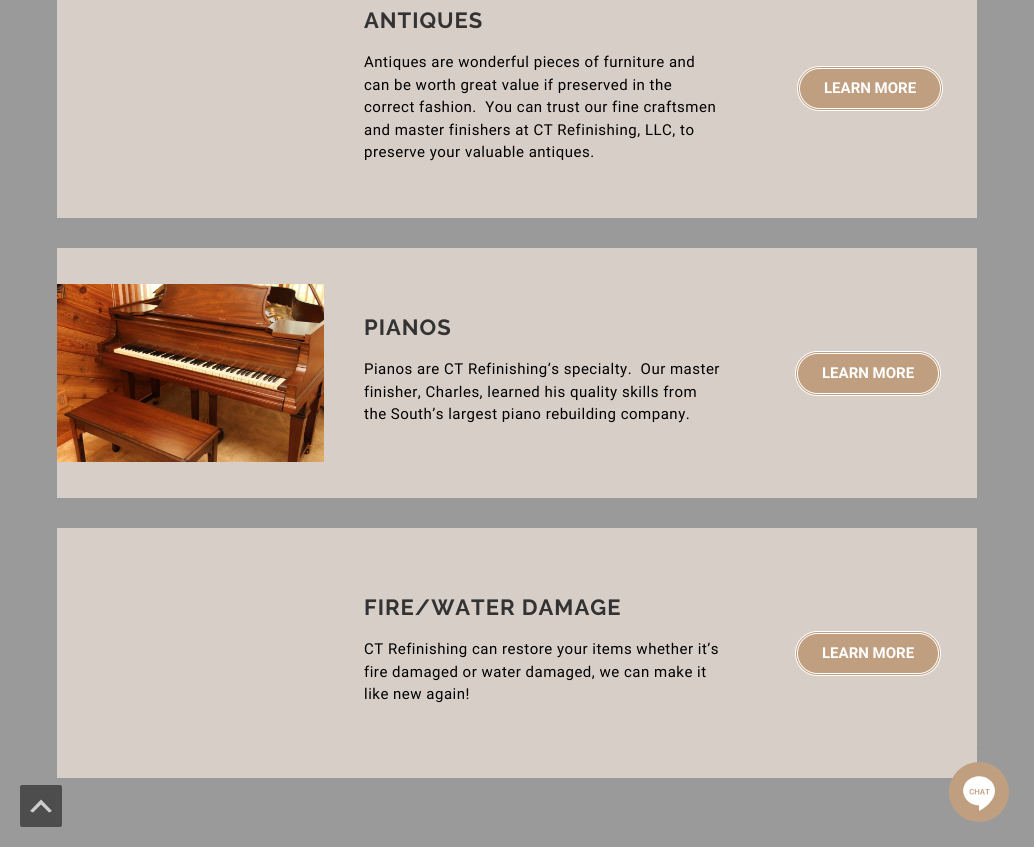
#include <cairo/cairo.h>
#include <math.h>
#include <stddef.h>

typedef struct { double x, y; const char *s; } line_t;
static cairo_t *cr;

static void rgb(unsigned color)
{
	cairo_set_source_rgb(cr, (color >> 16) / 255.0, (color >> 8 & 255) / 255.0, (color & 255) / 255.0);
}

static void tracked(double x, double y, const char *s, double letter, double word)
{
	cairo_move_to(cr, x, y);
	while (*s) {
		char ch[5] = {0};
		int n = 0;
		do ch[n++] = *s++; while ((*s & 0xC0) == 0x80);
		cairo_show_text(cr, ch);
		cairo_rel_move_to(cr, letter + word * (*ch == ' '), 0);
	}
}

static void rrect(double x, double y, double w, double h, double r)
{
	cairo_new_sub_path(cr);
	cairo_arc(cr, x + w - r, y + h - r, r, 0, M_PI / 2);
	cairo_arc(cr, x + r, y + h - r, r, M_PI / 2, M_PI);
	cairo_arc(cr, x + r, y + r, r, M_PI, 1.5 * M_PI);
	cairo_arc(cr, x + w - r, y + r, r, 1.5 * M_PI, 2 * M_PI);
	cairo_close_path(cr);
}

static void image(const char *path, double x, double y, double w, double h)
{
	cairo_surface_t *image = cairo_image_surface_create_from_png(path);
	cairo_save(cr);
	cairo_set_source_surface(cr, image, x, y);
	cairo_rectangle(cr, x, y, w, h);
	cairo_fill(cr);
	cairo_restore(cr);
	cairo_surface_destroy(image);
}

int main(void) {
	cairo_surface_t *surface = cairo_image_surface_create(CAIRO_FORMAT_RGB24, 1034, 847);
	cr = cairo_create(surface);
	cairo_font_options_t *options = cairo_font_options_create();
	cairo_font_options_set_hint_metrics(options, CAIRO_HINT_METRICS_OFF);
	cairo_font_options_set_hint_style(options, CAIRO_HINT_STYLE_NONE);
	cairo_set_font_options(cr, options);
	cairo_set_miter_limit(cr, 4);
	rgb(0x9a9a9a);
	cairo_paint(cr);
	rgb(0xd7cec7);
	cairo_rectangle(cr, 57, 0, 920, 218);
	cairo_fill(cr);
	rgb(0xc09f80);
	rrect(797.5, 66.5, 145, 44, 22);
	cairo_fill_preserve(cr);
	rgb(0xffffff);
	cairo_set_line_width(cr, 1);
	cairo_stroke(cr);
	rrect(799.5, 68.5, 141, 40, 20);
	cairo_stroke(cr);
	rgb(0xd7cec7);
	cairo_rectangle(cr, 57, 248, 920, 250);
	cairo_fill(cr);
	image("img/1.png", 57, 284, 267, 178);
	rgb(0xc09f80);
	rrect(795.5, 351.5, 145, 44, 22);
	cairo_fill_preserve(cr);
	rgb(0xffffff);
	cairo_stroke(cr);
	rrect(797.5, 353.5, 141, 40, 20);
	cairo_stroke(cr);
	rgb(0xd7cec7);
	cairo_rectangle(cr, 57, 528, 920, 250);
	cairo_fill(cr);
	rgb(0xc09f80);
	rrect(795.5, 631.5, 145, 44, 22);
	cairo_fill_preserve(cr);
	rgb(0xffffff);
	cairo_stroke(cr);
	rrect(797.5, 633.5, 141, 40, 20);
	cairo_stroke(cr);
	image("img/2.png", 949, 747, 60, 75);
	rgb(0x4d4d4d);
	rrect(20, 785, 42, 42, 2);
	cairo_fill(cr);
	rgb(0xcdcdcd);
	cairo_new_path(cr);
	cairo_move_to(cr, 49, 812.5);
	cairo_line_to(cr, 41, 804.5);
	cairo_line_to(cr, 33, 812.5);
	cairo_line_to(cr, 30, 811);
	cairo_line_to(cr, 41, 799.5);
	cairo_line_to(cr, 52, 811);
	cairo_close_path(cr);
	cairo_fill(cr);
	cairo_select_font_face(cr, "Raleway", CAIRO_FONT_SLANT_NORMAL, CAIRO_FONT_WEIGHT_BOLD);
	cairo_set_font_size(cr, 22);
	rgb(0x333333);
	tracked(364, 28, "ANTIQUES", 1, 0);
	cairo_select_font_face(cr, "Roboto", CAIRO_FONT_SLANT_NORMAL, CAIRO_FONT_WEIGHT_NORMAL);
	cairo_set_font_size(cr, 15);
	rgb(0x000000);
	{
		static const line_t items[] = {
			{364, 67, "Antiques are wonderful pieces of furniture and"},
			{364, 90, "can be worth great value if preserved in the"},
			{364, 112, "correct fashion.  You can trust our fine craftsmen"},
			{364, 135, "and master finishers at CT Refinishing, LLC, to"},
			{364, 157, "preserve your valuable antiques."},
		};
		for (size_t i = 0; i < sizeof items / sizeof *items; i++) {
			tracked(items[i].x, items[i].y, items[i].s, 0.5, 0);
		}
	}
	cairo_select_font_face(cr, "Roboto", CAIRO_FONT_SLANT_NORMAL, CAIRO_FONT_WEIGHT_BOLD);
	rgb(0xffffff);
	cairo_move_to(cr, 824, 93);
	cairo_show_text(cr, "LEARN MORE");
	cairo_select_font_face(cr, "Raleway", CAIRO_FONT_SLANT_NORMAL, CAIRO_FONT_WEIGHT_BOLD);
	cairo_set_font_size(cr, 22);
	rgb(0x333333);
	tracked(364, 335, "PIANOS", 1, 0);
	cairo_select_font_face(cr, "Roboto", CAIRO_FONT_SLANT_NORMAL, CAIRO_FONT_WEIGHT_NORMAL);
	cairo_set_font_size(cr, 15);
	rgb(0x000000);
	{
		static const line_t items[] = {
			{364, 374, "Pianos are CT Refinishing’s specialty.  Our master"},
			{364, 397, "finisher, Charles, learned his quality skills from"},
			{364, 419, "the South’s largest piano rebuilding company."},
		};
		for (size_t i = 0; i < sizeof items / sizeof *items; i++) {
			tracked(items[i].x, items[i].y, items[i].s, 0.5, 0);
		}
	}
	cairo_select_font_face(cr, "Roboto", CAIRO_FONT_SLANT_NORMAL, CAIRO_FONT_WEIGHT_BOLD);
	rgb(0xffffff);
	cairo_move_to(cr, 822, 378);
	cairo_show_text(cr, "LEARN MORE");
	cairo_select_font_face(cr, "Raleway", CAIRO_FONT_SLANT_NORMAL, CAIRO_FONT_WEIGHT_BOLD);
	cairo_set_font_size(cr, 22);
	rgb(0x333333);
	tracked(364, 615, "FIRE/WATER DAMAGE", 1, 0);
	cairo_select_font_face(cr, "Roboto", CAIRO_FONT_SLANT_NORMAL, CAIRO_FONT_WEIGHT_NORMAL);
	cairo_set_font_size(cr, 15);
	rgb(0x000000);
	{
		static const line_t items[] = {
			{364, 654, "CT Refinishing can restore your items whether it’s"},
			{364, 677, "fire damaged or water damaged, we can make it"},
			{364, 699, "like new again!"},
		};
		for (size_t i = 0; i < sizeof items / sizeof *items; i++) {
			tracked(items[i].x, items[i].y, items[i].s, 0.5, 0);
		}
	}
	cairo_select_font_face(cr, "Roboto", CAIRO_FONT_SLANT_NORMAL, CAIRO_FONT_WEIGHT_BOLD);
	rgb(0xffffff);
	cairo_move_to(cr, 822, 658);
	cairo_show_text(cr, "LEARN MORE");
	cairo_surface_write_to_png(surface, "page.png");
	cairo_font_options_destroy(options);
	cairo_destroy(cr);
	cairo_surface_destroy(surface);
	return 0;
}
